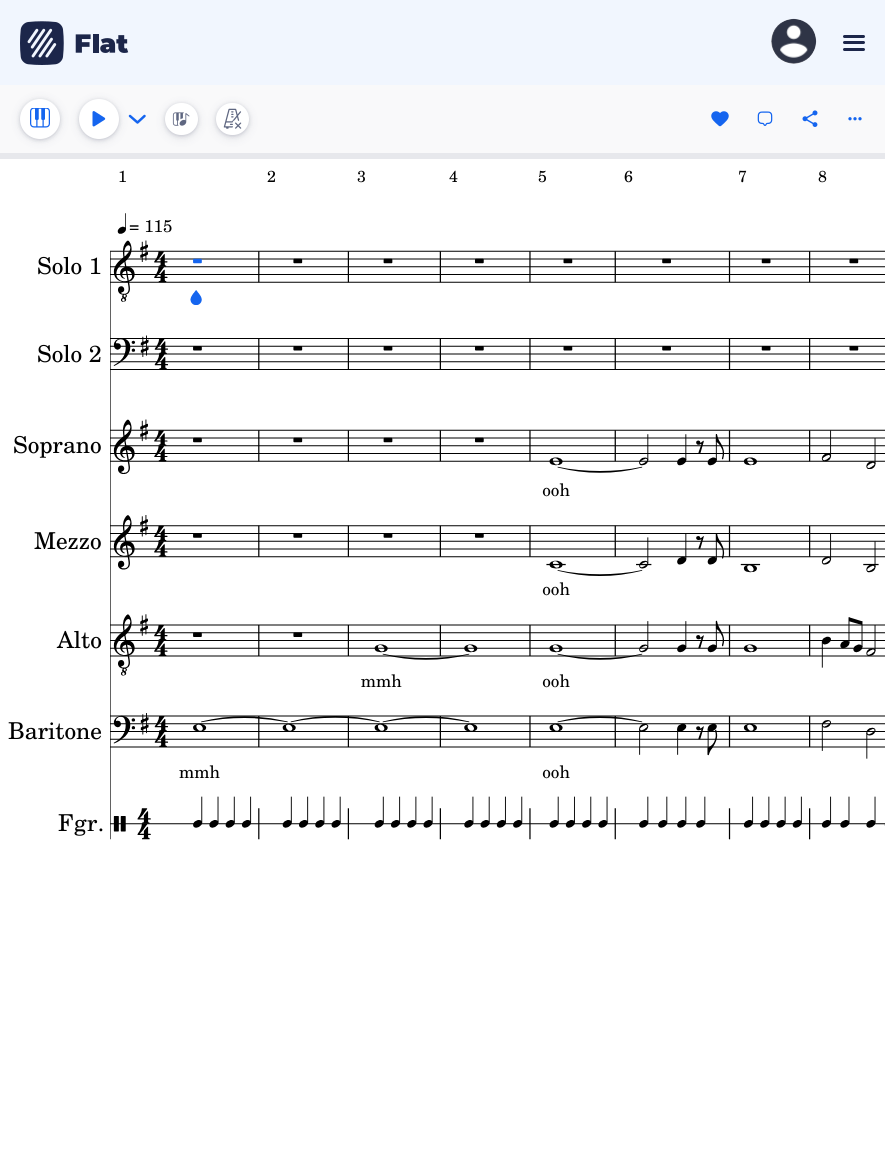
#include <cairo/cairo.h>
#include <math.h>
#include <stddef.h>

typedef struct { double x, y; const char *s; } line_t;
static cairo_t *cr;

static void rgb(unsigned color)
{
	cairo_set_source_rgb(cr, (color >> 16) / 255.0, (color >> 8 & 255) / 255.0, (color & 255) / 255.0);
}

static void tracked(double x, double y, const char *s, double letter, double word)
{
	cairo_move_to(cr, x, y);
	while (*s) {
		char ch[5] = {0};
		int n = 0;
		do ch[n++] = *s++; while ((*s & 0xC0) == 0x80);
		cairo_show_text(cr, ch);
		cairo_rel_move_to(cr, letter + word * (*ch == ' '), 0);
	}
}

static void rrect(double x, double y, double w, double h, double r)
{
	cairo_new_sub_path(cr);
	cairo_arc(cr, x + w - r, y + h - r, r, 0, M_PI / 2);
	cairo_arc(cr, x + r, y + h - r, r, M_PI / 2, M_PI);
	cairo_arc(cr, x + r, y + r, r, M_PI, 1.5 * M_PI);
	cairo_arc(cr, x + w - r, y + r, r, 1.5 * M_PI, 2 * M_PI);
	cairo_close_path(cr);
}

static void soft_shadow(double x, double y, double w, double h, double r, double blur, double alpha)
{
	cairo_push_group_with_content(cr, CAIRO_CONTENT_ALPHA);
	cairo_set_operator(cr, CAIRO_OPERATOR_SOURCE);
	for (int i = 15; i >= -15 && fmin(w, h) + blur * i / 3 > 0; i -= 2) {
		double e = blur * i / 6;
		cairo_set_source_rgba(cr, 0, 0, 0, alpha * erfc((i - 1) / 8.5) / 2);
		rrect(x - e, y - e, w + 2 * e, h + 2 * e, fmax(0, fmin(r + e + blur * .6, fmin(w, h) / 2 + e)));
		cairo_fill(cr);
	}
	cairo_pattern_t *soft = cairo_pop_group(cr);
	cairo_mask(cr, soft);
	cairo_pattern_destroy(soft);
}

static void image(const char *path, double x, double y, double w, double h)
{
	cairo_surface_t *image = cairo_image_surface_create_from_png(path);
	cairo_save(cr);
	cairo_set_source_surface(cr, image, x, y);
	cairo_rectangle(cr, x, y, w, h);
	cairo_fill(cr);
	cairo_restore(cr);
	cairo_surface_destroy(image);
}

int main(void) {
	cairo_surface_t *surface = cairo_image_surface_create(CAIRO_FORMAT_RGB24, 885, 1151);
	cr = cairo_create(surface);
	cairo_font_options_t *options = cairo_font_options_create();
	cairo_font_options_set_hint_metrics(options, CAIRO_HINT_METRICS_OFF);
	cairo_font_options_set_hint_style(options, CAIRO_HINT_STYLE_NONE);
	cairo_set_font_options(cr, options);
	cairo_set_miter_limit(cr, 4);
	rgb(0xffffff);
	cairo_paint(cr);
	rgb(0xf1f6fe);
	cairo_rectangle(cr, 0, 0, 885, 85);
	cairo_fill(cr);
	image("img/1.png", 20, 21, 109, 44);
	rgb(0xffffff);
	cairo_arc(cr, 793.5, 41.5, 22.5, 0, 2 * M_PI);
	cairo_fill(cr);
	image("img/2.png", 771, 18, 46, 46);
	rgb(0x1c264a);
	rrect(843, 35, 22, 3, 1.5);
	cairo_fill(cr);
	rrect(843, 41, 22, 3, 1.5);
	cairo_fill(cr);
	rrect(843, 48, 22, 3, 1.5);
	cairo_fill(cr);
	rgb(0xf9f9fa);
	cairo_rectangle(cr, 0, 85, 885, 68);
	cairo_fill(cr);
	rgb(0x28304f);
	soft_shadow(79, 101, 40, 40, 20, 5, 0.1);
	soft_shadow(165, 105, 33, 33, 16.5, 5, 0.1);
	soft_shadow(216, 105, 33, 33, 16.5, 5, 0.1);
	rgb(0xe7e8ec);
	cairo_rectangle(cr, 0, 153, 885, 6);
	cairo_fill(cr);
	rgb(0x28304f);
	soft_shadow(20, 100, 40, 40, 20, 5, 0.1);
	soft_shadow(20, 100, 40, 40, 20, 2, 0.2);
	rgb(0xffffff);
	cairo_arc(cr, 40, 119, 20, 0, 2 * M_PI);
	cairo_fill(cr);
	image("img/3.png", 30, 108, 20, 20);
	rgb(0x28304f);
	soft_shadow(79, 100, 40, 40, 20, 2, 0.2);
	rgb(0xffffff);
	cairo_arc(cr, 99, 119, 20, 0, 2 * M_PI);
	cairo_fill(cr);
	image("img/4.png", 92, 111, 14, 16);
	cairo_new_path(cr);
	cairo_move_to(cr, 130, 116);
	cairo_line_to(cr, 137.5, 122.5);
	cairo_line_to(cr, 144.5, 116);
	rgb(0x1565ef);
	cairo_set_line_width(cr, 2.5);
	cairo_set_line_cap(cr, CAIRO_LINE_CAP_ROUND);
	cairo_set_line_join(cr, CAIRO_LINE_JOIN_ROUND);
	cairo_stroke(cr);
	rgb(0x28304f);
	soft_shadow(165, 104, 33, 32, 16, 2, 0.2);
	rgb(0xffffff);
	rrect(165, 103, 33, 32, 16);
	cairo_fill(cr);
	image("img/5.png", 172, 112, 18, 14);
	rgb(0x28304f);
	soft_shadow(216, 104, 33, 32, 16, 2, 0.2);
	rgb(0xffffff);
	rrect(216, 103, 33, 32, 16);
	cairo_fill(cr);
	image("img/6.png", 223, 108, 19, 21);
	image("img/7.png", 711, 111, 18, 16);
	image("img/8.png", 757, 111, 16, 15);
	image("img/9.png", 802, 110, 16, 17);
	image("img/10.png", 848, 117, 14, 4);
	image("img/11.png", 110, 213, 775, 627);
	cairo_select_font_face(cr, "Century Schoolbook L", CAIRO_FONT_SLANT_NORMAL, CAIRO_FONT_WEIGHT_NORMAL);
	cairo_set_font_size(cr, 16);
	rgb(0x000000);
	{
		static const line_t items[] = {
			{118, 182, "1"},
			{267, 182, "2"},
			{357, 182, "3"},
			{449, 182, "4"},
			{538, 182, "5"},
			{624, 182, "6"},
			{738, 182, "7"},
			{818, 182, "8"},
		};
		for (size_t i = 0; i < sizeof items / sizeof *items; i++) {
			cairo_move_to(cr, items[i].x, items[i].y);
			cairo_show_text(cr, items[i].s);
		}
	}
	cairo_set_font_size(cr, 23.25);
	{
		static const line_t items[] = {
			{37, 274, "Solo 1"},
			{37, 362, "Solo 2"},
			{13, 453, "Soprano"},
			{34, 549, "Mezzo"},
			{57, 648, "Alto"},
			{8, 739, "Baritone"},
		};
		for (size_t i = 0; i < sizeof items / sizeof *items; i++) {
			cairo_move_to(cr, items[i].x, items[i].y);
			cairo_show_text(cr, items[i].s);
		}
	}
	tracked(58, 831, "Fgr.", 0.5, 0);
	cairo_surface_write_to_png(surface, "page.png");
	cairo_font_options_destroy(options);
	cairo_destroy(cr);
	cairo_surface_destroy(surface);
	return 0;
}
